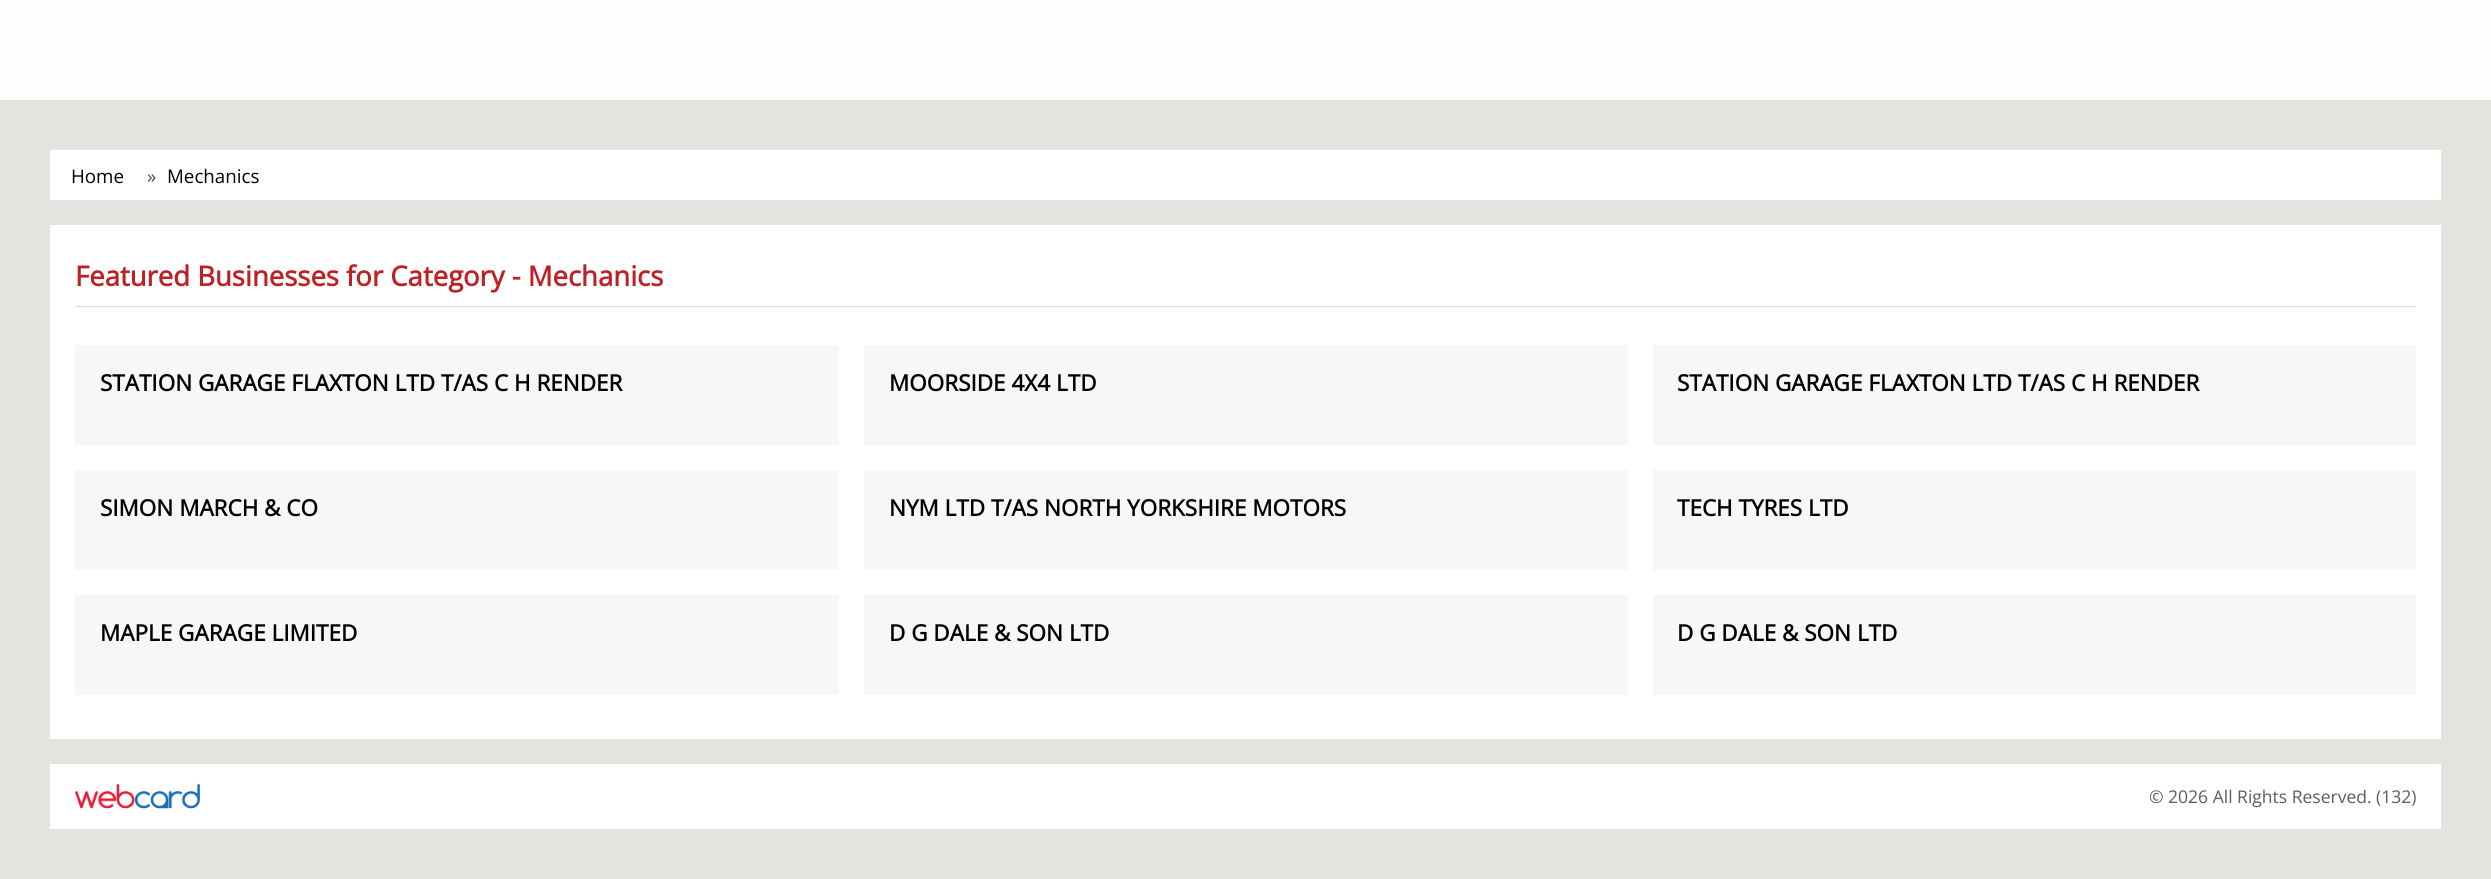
#include <cairo/cairo.h>
#include <math.h>
#include <stddef.h>

typedef struct { double x, y; const char *s; } line_t;
typedef struct { double x, y, w, h; unsigned color; } box_t;
static cairo_t *cr;

static void rgb(unsigned color)
{
	cairo_set_source_rgb(cr, (color >> 16) / 255.0, (color >> 8 & 255) / 255.0, (color & 255) / 255.0);
}

static void image(const char *path, double x, double y, double w, double h)
{
	cairo_surface_t *image = cairo_image_surface_create_from_png(path);
	cairo_save(cr);
	cairo_set_source_surface(cr, image, x, y);
	cairo_rectangle(cr, x, y, w, h);
	cairo_fill(cr);
	cairo_restore(cr);
	cairo_surface_destroy(image);
}

int main(void) {
	cairo_surface_t *surface = cairo_image_surface_create(CAIRO_FORMAT_RGB24, 2491, 879);
	cr = cairo_create(surface);
	cairo_font_options_t *options = cairo_font_options_create();
	cairo_font_options_set_hint_metrics(options, CAIRO_HINT_METRICS_OFF);
	cairo_font_options_set_hint_style(options, CAIRO_HINT_STYLE_NONE);
	cairo_set_font_options(cr, options);
	cairo_set_miter_limit(cr, 4);
	rgb(0xe5e3df);
	cairo_paint(cr);
	{
		static const box_t items[] = {
			{0, 0, 2491, 100, 0xfdfdfd},
			{50, 150, 2391, 50, 0xffffff},
			{50, 225, 2391, 514, 0xffffff},
			{75, 306, 2341, 1, 0xdcdcdc},
			{75, 345, 764, 100, 0xf7f7f7},
			{864, 345, 764, 100, 0xf7f7f7},
			{1653, 345, 763, 100, 0xf7f7f7},
			{75, 470, 764, 100, 0xf7f7f7},
			{864, 470, 764, 100, 0xf7f7f7},
			{1653, 470, 763, 100, 0xf7f7f7},
			{75, 595, 764, 100, 0xf7f7f7},
			{864, 595, 764, 100, 0xf7f7f7},
			{1653, 595, 763, 100, 0xf7f7f7},
			{50, 764, 2391, 65, 0xffffff},
		};
		for (size_t i = 0; i < sizeof items / sizeof *items; i++) {
			rgb(items[i].color);
			cairo_rectangle(cr, items[i].x, items[i].y, items[i].w, items[i].h);
			cairo_fill(cr);
		}
	}
	image("img/1.png", 75, 783, 125, 26);
	cairo_select_font_face(cr, "Open Sans", CAIRO_FONT_SLANT_NORMAL, CAIRO_FONT_WEIGHT_NORMAL);
	cairo_set_font_size(cr, 18.75);
	rgb(0x000000);
	cairo_move_to(cr, 71, 183);
	cairo_show_text(cr, "Home");
	rgb(0x4e4e4e);
	cairo_move_to(cr, 147, 183);
	cairo_show_text(cr, "»");
	rgb(0x000000);
	cairo_move_to(cr, 167, 183);
	cairo_show_text(cr, "Mechanics");
	cairo_select_font_face(cr, "Open Sans", CAIRO_FONT_SLANT_NORMAL, CAIRO_FONT_WEIGHT_BOLD);
	cairo_set_font_size(cr, 27.5);
	rgb(0xbd2125);
	cairo_move_to(cr, 75, 286);
	cairo_show_text(cr, "Featured Businesses for Category - Mechanics");
	cairo_set_font_size(cr, 22.5);
	rgb(0x000000);
	{
		static const line_t items[] = {
			{100, 391, "STATION GARAGE FLAXTON LTD T/AS C H RENDER"},
			{889, 391, "MOORSIDE 4X4 LTD"},
			{1677, 391, "STATION GARAGE FLAXTON LTD T/AS C H RENDER"},
			{100, 516, "SIMON MARCH & CO"},
			{889, 516, "NYM LTD T/AS NORTH YORKSHIRE MOTORS"},
			{1677, 516, "TECH TYRES LTD"},
			{100, 641, "MAPLE GARAGE LIMITED"},
			{889, 641, "D G DALE & SON LTD"},
			{1677, 641, "D G DALE & SON LTD"},
		};
		for (size_t i = 0; i < sizeof items / sizeof *items; i++) {
			cairo_move_to(cr, items[i].x, items[i].y);
			cairo_show_text(cr, items[i].s);
		}
	}
	cairo_select_font_face(cr, "Open Sans", CAIRO_FONT_SLANT_NORMAL, CAIRO_FONT_WEIGHT_NORMAL);
	cairo_set_font_size(cr, 17.5);
	rgb(0x5c5c5c);
	cairo_move_to(cr, 2149, 803);
	cairo_show_text(cr, "© 2026 All Rights Reserved. (132)");
	cairo_surface_write_to_png(surface, "page.png");
	cairo_font_options_destroy(options);
	cairo_destroy(cr);
	cairo_surface_destroy(surface);
	return 0;
}
